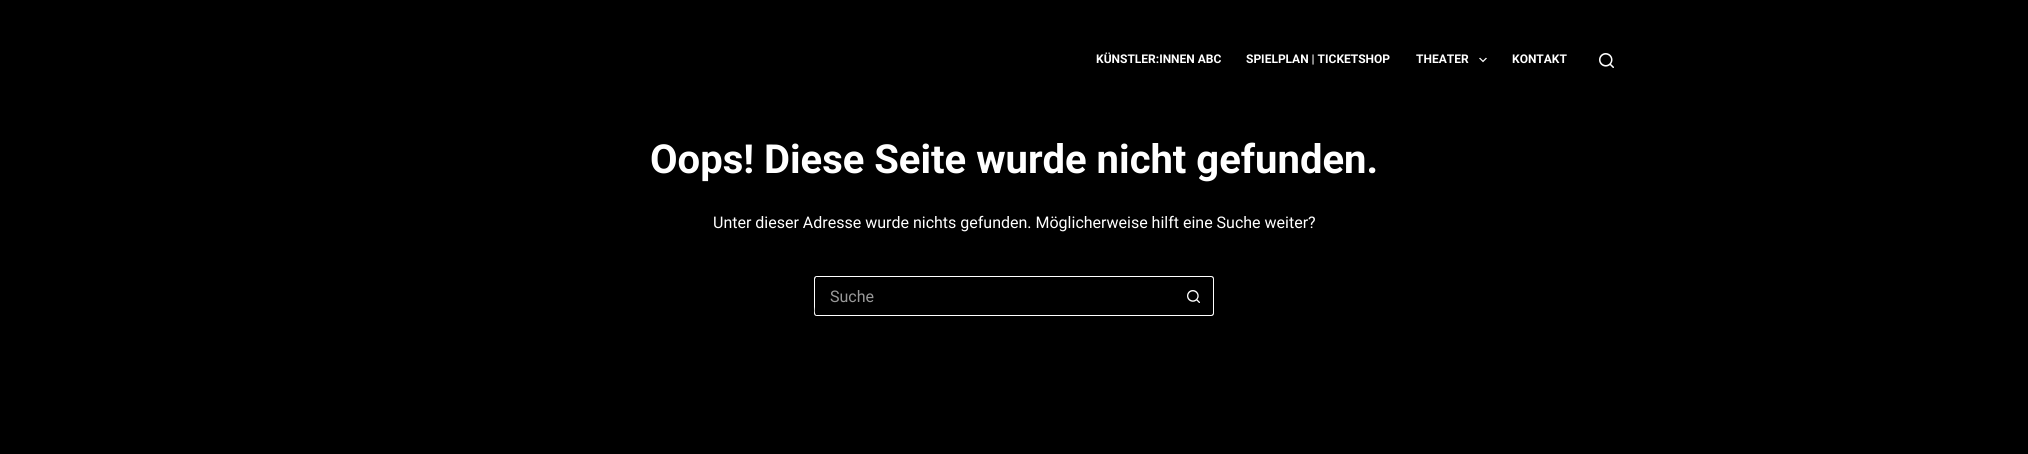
#include <cairo/cairo.h>
#include <math.h>
#include <stddef.h>

typedef struct { double x, y; const char *s; } line_t;
static cairo_t *cr;

static void rgb(unsigned color)
{
	cairo_set_source_rgb(cr, (color >> 16) / 255.0, (color >> 8 & 255) / 255.0, (color & 255) / 255.0);
}

static void image(const char *path, double x, double y, double w, double h)
{
	cairo_surface_t *image = cairo_image_surface_create_from_png(path);
	cairo_save(cr);
	cairo_set_source_surface(cr, image, x, y);
	cairo_rectangle(cr, x, y, w, h);
	cairo_fill(cr);
	cairo_restore(cr);
	cairo_surface_destroy(image);
}

int main(void) {
	cairo_surface_t *surface = cairo_image_surface_create(CAIRO_FORMAT_RGB24, 2028, 454);
	cr = cairo_create(surface);
	cairo_font_options_t *options = cairo_font_options_create();
	cairo_font_options_set_hint_metrics(options, CAIRO_HINT_METRICS_OFF);
	cairo_font_options_set_hint_style(options, CAIRO_HINT_STYLE_NONE);
	cairo_set_font_options(cr, options);
	cairo_set_miter_limit(cr, 4);
	rgb(0x000000);
	cairo_paint(cr);
	image("img/1.png", 1479, 57, 8, 6);
	image("img/2.png", 1599, 53, 15, 15);
	rgb(0xffffff);
	cairo_set_fill_rule(cr, CAIRO_FILL_RULE_EVEN_ODD);
	cairo_new_path(cr);
	cairo_move_to(cr, 817, 276);
	cairo_line_to(cr, 1174, 276);
	cairo_line_to(cr, 1174, 316);
	cairo_line_to(cr, 817, 316);
	cairo_curve_to(cr, 815, 316, 814, 315, 814, 313);
	cairo_line_to(cr, 814, 279);
	cairo_curve_to(cr, 814, 277, 815, 276, 817, 276);
	cairo_close_path(cr);
	cairo_move_to(cr, 817, 277);
	cairo_line_to(cr, 1174, 277);
	cairo_line_to(cr, 1174, 315);
	cairo_line_to(cr, 816, 315);
	cairo_curve_to(cr, 814, 313, 815, 308, 815, 307);
	cairo_line_to(cr, 815, 279);
	cairo_line_to(cr, 816, 277);
	cairo_close_path(cr);
	cairo_fill(cr);
	cairo_new_path(cr);
	cairo_move_to(cr, 1174, 276);
	cairo_line_to(cr, 1211, 276);
	cairo_curve_to(cr, 1213, 276, 1214, 277, 1214, 279);
	cairo_line_to(cr, 1214, 313);
	cairo_curve_to(cr, 1214, 315, 1213, 316, 1211, 316);
	cairo_line_to(cr, 1174, 316);
	cairo_close_path(cr);
	cairo_move_to(cr, 1174, 277);
	cairo_line_to(cr, 1211, 277);
	cairo_curve_to(cr, 1212, 277, 1213, 278, 1213, 279);
	cairo_line_to(cr, 1213, 313);
	cairo_curve_to(cr, 1213, 314, 1212, 315, 1211, 315);
	cairo_line_to(cr, 1174, 315);
	cairo_close_path(cr);
	cairo_fill(cr);
	image("img/3.png", 1187, 290, 13, 13);
	cairo_select_font_face(cr, "Roboto", CAIRO_FONT_SLANT_NORMAL, CAIRO_FONT_WEIGHT_BOLD);
	cairo_set_font_size(cr, 12);
	{
		static const line_t items[] = {
			{1096, 63, "KÜNSTLER:INNEN ABC"},
			{1246, 63, "SPIELPLAN | TICKETSHOP"},
			{1416, 63, "THEATER"},
			{1512, 63, "KONTAKT"},
		};
		for (size_t i = 0; i < sizeof items / sizeof *items; i++) {
			cairo_move_to(cr, items[i].x, items[i].y);
			cairo_show_text(cr, items[i].s);
		}
	}
	cairo_set_font_size(cr, 40);
	cairo_move_to(cr, 650, 173);
	cairo_show_text(cr, "Oops! Diese Seite wurde nicht gefunden.");
	cairo_select_font_face(cr, "Roboto", CAIRO_FONT_SLANT_NORMAL, CAIRO_FONT_WEIGHT_NORMAL);
	cairo_set_font_size(cr, 16);
	cairo_move_to(cr, 713, 228);
	cairo_show_text(cr, "Unter dieser Adresse wurde nichts gefunden. Möglicherweise hilft eine Suche weiter?");
	rgb(0x999999);
	cairo_move_to(cr, 830, 302);
	cairo_show_text(cr, "Suche");
	cairo_surface_write_to_png(surface, "page.png");
	cairo_font_options_destroy(options);
	cairo_destroy(cr);
	cairo_surface_destroy(surface);
	return 0;
}
